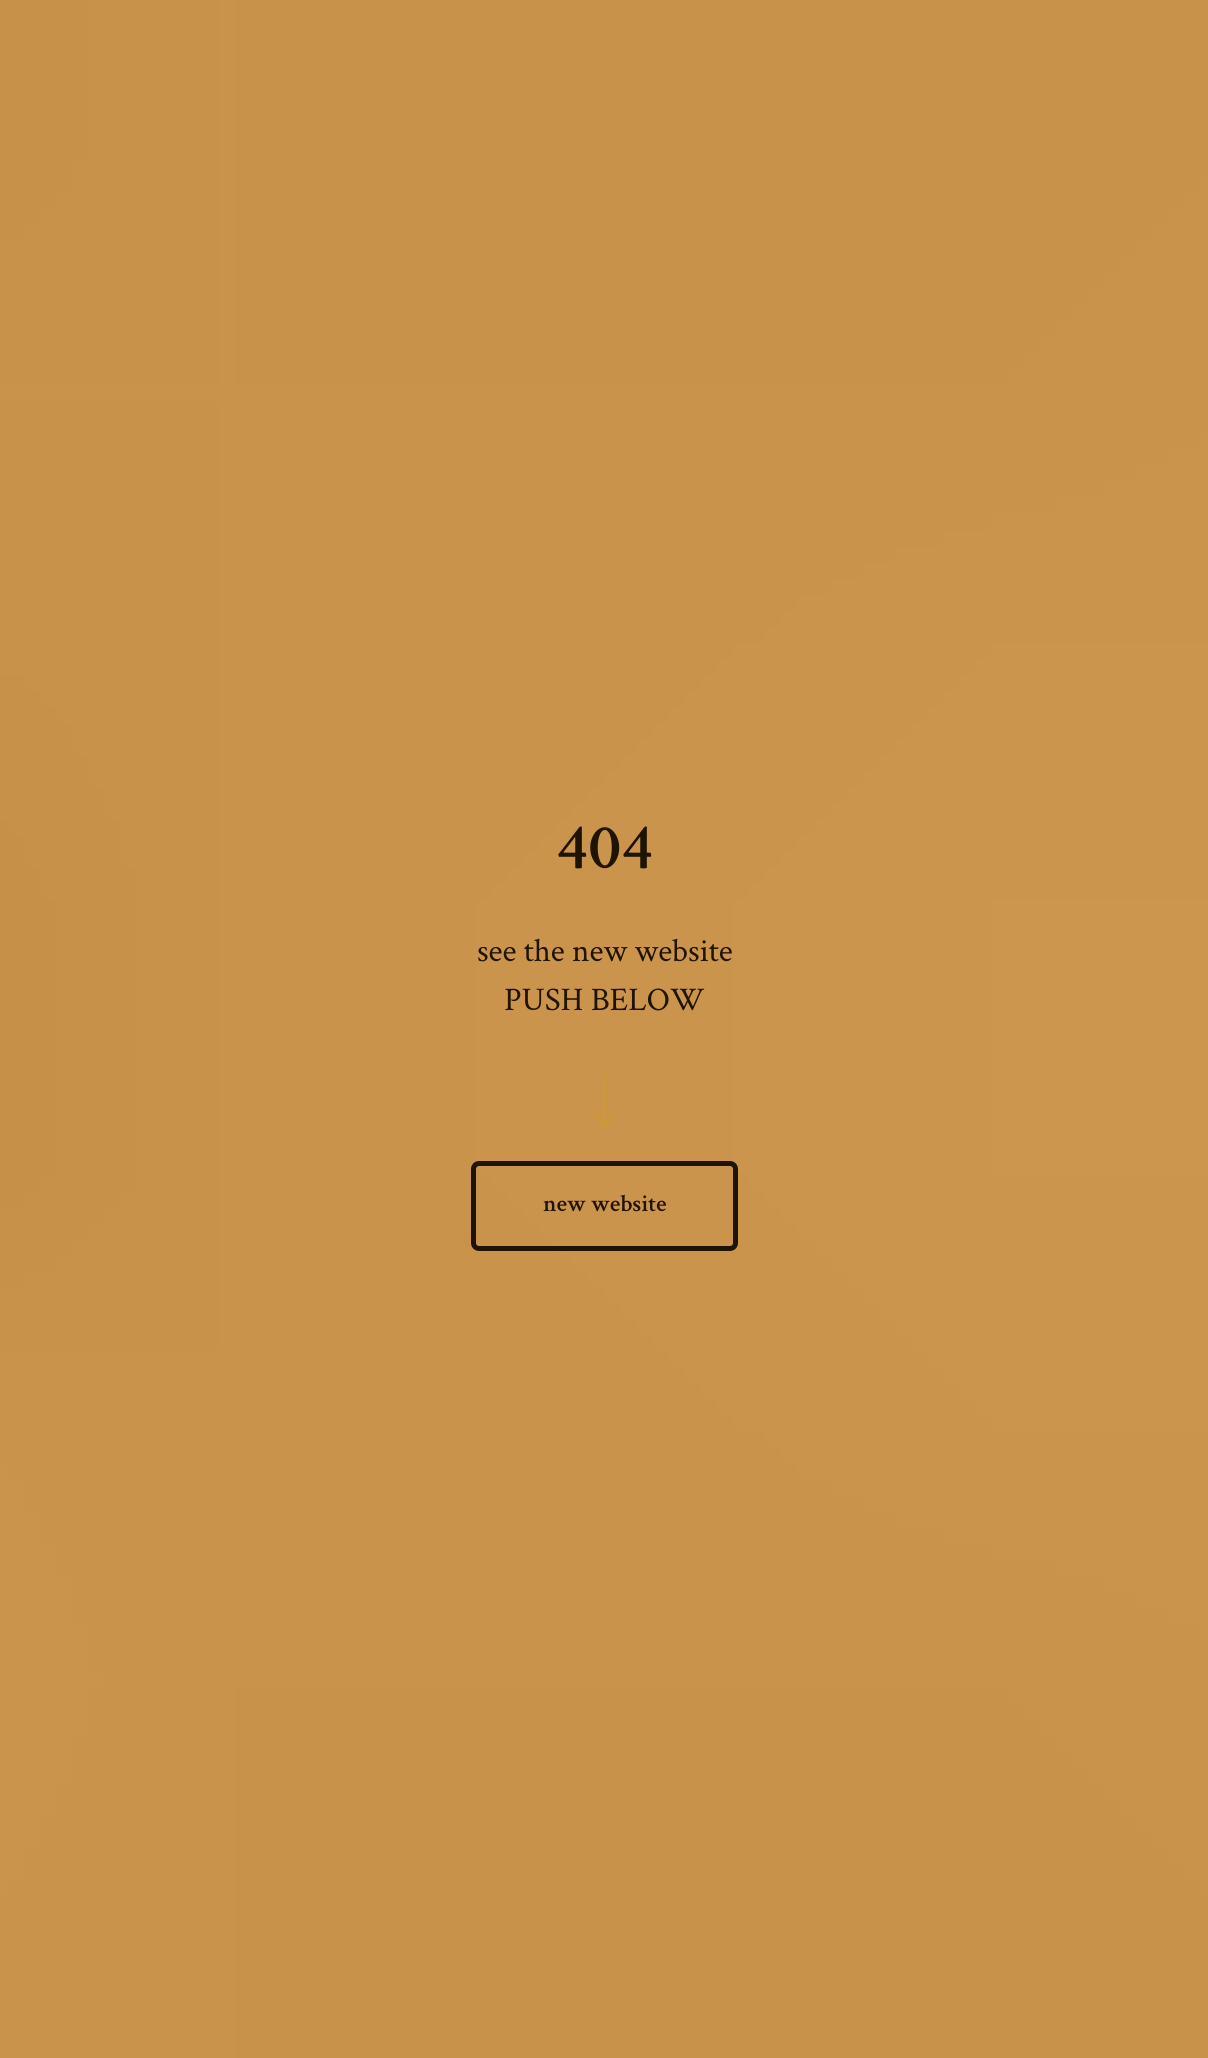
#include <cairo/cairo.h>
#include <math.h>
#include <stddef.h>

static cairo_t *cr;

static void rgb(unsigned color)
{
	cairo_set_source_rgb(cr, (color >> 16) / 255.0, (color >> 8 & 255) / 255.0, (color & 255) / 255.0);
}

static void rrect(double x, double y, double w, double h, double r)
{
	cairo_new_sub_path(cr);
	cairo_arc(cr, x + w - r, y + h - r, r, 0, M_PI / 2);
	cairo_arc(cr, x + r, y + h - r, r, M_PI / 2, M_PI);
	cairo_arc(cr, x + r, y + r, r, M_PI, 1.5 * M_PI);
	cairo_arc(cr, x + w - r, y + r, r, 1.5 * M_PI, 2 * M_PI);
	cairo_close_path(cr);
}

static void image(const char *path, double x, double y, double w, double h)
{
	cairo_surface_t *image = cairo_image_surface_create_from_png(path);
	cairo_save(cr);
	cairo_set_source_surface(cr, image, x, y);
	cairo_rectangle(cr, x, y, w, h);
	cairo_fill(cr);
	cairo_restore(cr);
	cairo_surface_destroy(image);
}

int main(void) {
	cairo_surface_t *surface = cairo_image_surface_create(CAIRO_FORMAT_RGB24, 1208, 2058);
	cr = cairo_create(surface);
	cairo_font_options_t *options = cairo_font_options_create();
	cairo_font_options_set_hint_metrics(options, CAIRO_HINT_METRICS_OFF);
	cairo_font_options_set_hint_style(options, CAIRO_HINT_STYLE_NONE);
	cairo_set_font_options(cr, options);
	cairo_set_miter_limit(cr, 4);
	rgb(0xffffff);
	cairo_paint(cr);
	image("img/1.png", 0, 0, 1208, 2058);
	image("img/2.png", 592, 1074, 25, 53);
	rrect(473.5, 1163.5, 262, 85, 5.5);
	rgb(0x1f1303);
	cairo_set_line_width(cr, 5);
	cairo_stroke(cr);
	cairo_select_font_face(cr, "Crimson Text SemiBold", CAIRO_FONT_SLANT_NORMAL, CAIRO_FONT_WEIGHT_NORMAL);
	cairo_set_font_size(cr, 66);
	cairo_move_to(cr, 556, 868);
	cairo_show_text(cr, "404");
	cairo_select_font_face(cr, "Crimson Text", CAIRO_FONT_SLANT_NORMAL, CAIRO_FONT_WEIGHT_NORMAL);
	cairo_set_font_size(cr, 33);
	cairo_move_to(cr, 477, 961);
	cairo_show_text(cr, "see the new website");
	cairo_move_to(cr, 504, 1010);
	cairo_show_text(cr, "PUSH BELOW");
	cairo_select_font_face(cr, "Crimson Text SemiBold", CAIRO_FONT_SLANT_NORMAL, CAIRO_FONT_WEIGHT_NORMAL);
	cairo_set_font_size(cr, 24);
	cairo_move_to(cr, 543, 1211);
	cairo_show_text(cr, "new website");
	cairo_surface_write_to_png(surface, "page.png");
	cairo_font_options_destroy(options);
	cairo_destroy(cr);
	cairo_surface_destroy(surface);
	return 0;
}
